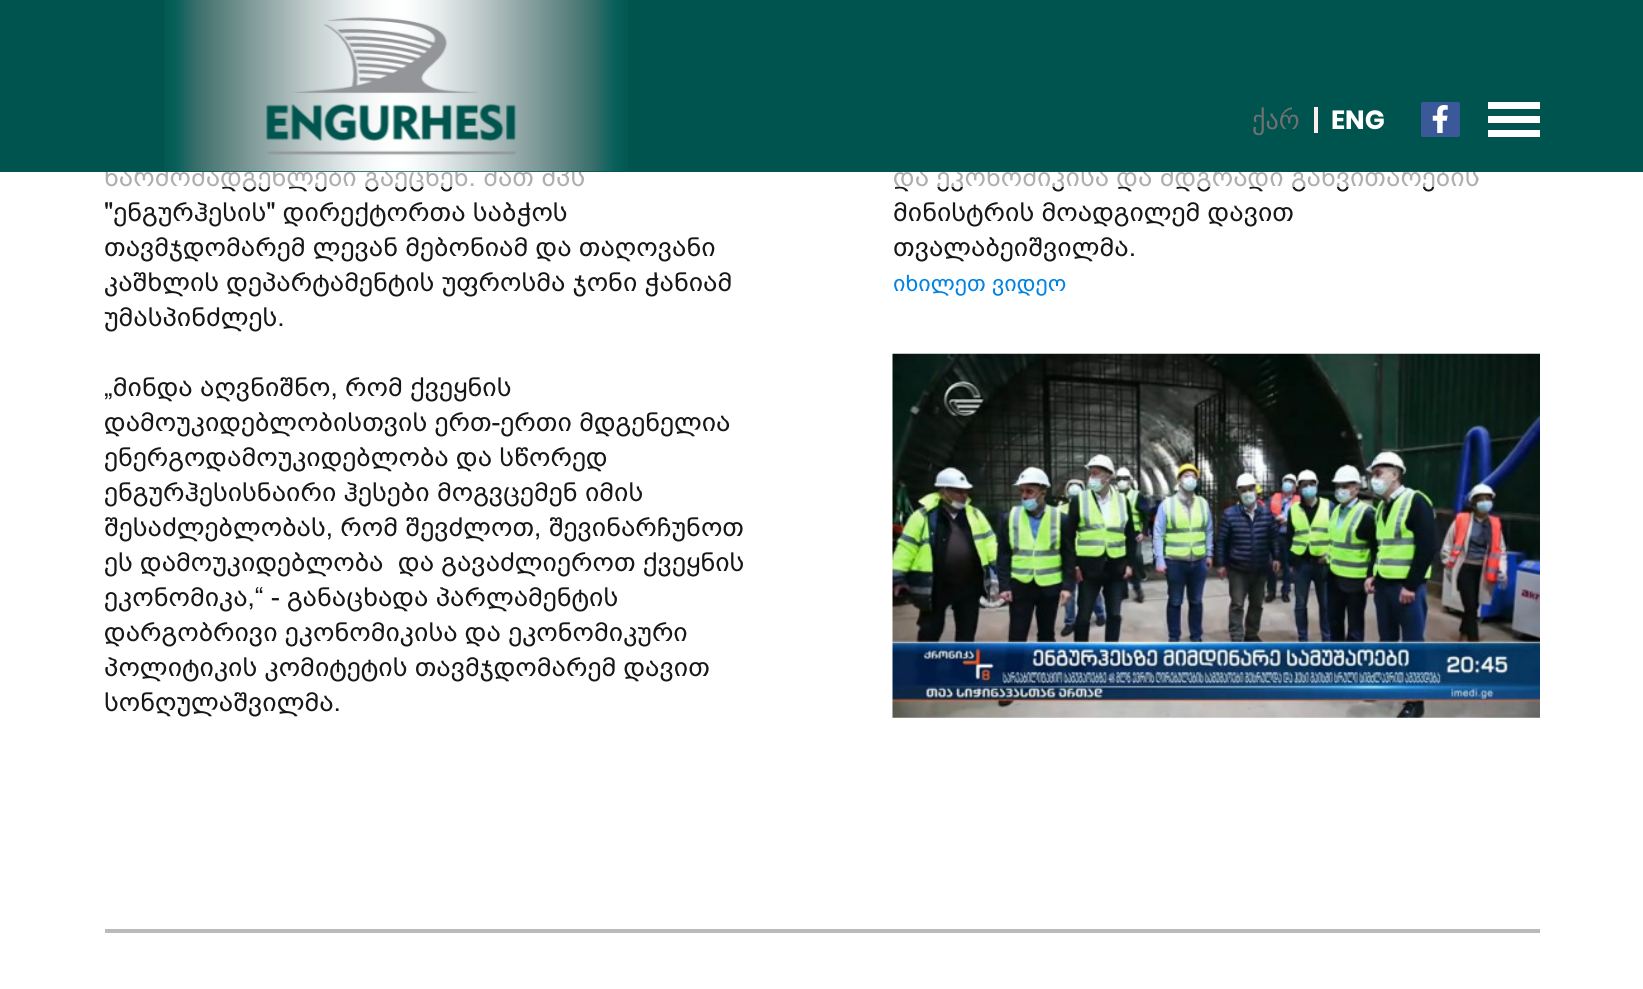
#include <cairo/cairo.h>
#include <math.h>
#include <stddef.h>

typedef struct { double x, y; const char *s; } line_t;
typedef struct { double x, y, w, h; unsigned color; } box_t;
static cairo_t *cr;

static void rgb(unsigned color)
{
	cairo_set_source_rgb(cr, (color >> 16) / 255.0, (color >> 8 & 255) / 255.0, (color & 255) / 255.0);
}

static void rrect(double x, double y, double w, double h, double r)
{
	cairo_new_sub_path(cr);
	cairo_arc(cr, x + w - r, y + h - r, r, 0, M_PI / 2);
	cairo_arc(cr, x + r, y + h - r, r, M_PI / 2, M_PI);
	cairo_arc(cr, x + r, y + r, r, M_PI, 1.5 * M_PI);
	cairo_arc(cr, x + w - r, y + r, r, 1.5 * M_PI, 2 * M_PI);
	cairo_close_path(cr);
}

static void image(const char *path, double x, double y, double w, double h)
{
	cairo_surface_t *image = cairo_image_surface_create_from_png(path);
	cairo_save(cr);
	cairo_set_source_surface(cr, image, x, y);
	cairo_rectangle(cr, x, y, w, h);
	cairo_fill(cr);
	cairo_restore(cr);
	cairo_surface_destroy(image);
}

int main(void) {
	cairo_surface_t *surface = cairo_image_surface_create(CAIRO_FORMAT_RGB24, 1643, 989);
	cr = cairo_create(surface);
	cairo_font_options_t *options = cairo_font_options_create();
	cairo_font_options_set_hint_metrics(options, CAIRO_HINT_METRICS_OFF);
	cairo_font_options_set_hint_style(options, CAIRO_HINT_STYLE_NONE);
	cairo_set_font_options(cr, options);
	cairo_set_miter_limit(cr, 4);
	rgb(0xffffff);
	cairo_paint(cr);
	image("img/3.png", 892, 353, 648, 365);
	rgb(0xbababa);
	cairo_rectangle(cr, 105, 929, 1435, 4);
	cairo_fill(cr);
	cairo_select_font_face(cr, "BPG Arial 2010", CAIRO_FONT_SLANT_NORMAL, CAIRO_FONT_WEIGHT_NORMAL);
	cairo_set_font_size(cr, 26.25);
	rgb(0x171717);
	{
		static const line_t items[] = {
			{104, 186, "წარმომადგენლები გაეცნენ. მათ შპს"},
			{104, 221, "\"ენგურჰესის\" დირექტორთა საბჭოს"},
			{104, 256, "თავმჯდომარემ ლევან მებონიამ და თაღოვანი"},
			{104, 291, "კაშხლის დეპარტამენტის უფროსმა ჯონი ჭანიამ"},
			{104, 326, "უმასპინძლეს."},
			{104, 396, "„მინდა აღვნიშნო, რომ ქვეყნის"},
			{104, 431, "დამოუკიდებლობისთვის ერთ-ერთი მდგენელია"},
			{104, 466, "ენერგოდამოუკიდებლობა და სწორედ"},
			{104, 501, "ენგურჰესისნაირი ჰესები მოგვცემენ იმის"},
			{104, 536, "შესაძლებლობას, რომ შევძლოთ, შევინარჩუნოთ"},
			{104, 571, "ეს დამოუკიდებლობა  და გავაძლიეროთ ქვეყნის"},
			{104, 606, "ეკონომიკა,“ - განაცხადა პარლამენტის"},
			{104, 641, "დარგობრივი ეკონომიკისა და ეკონომიკური"},
			{104, 676, "პოლიტიკის კომიტეტის თავმჯდომარემ დავით"},
			{104, 711, "სონღულაშვილმა."},
			{893, 186, "და ეკონომიკისა და მდგრადი განვითარების"},
		};
		for (size_t i = 0; i < sizeof items / sizeof *items; i++) {
			cairo_move_to(cr, items[i].x, items[i].y);
			cairo_show_text(cr, items[i].s);
		}
	}
	rgb(0x00544f);
	cairo_rectangle(cr, 0, 0, 1643, 172);
	cairo_fill(cr);
	rgb(0xffeded);
	cairo_rectangle(cr, 1314, 107, 4, 26);
	cairo_fill(cr);
	cairo_select_font_face(cr, "DejaVu Sans", CAIRO_FONT_SLANT_NORMAL, CAIRO_FONT_WEIGHT_NORMAL);
	rgb(0x707070);
	cairo_move_to(cr, 1252, 129);
	cairo_show_text(cr, "ქარ");
	{
		static const box_t items[] = {
			{1488, 130, 52, 7, 0xffffff},
			{1488, 116, 52, 7, 0xffffff},
			{1488, 102, 52, 7, 0xffffff},
		};
		for (size_t i = 0; i < sizeof items / sizeof *items; i++) {
			rgb(items[i].color);
			cairo_rectangle(cr, items[i].x, items[i].y, items[i].w, items[i].h);
			cairo_fill(cr);
		}
	}
	rgb(0x3b5998);
	rrect(1421, 102, 39, 35, 2);
	cairo_fill(cr);
	image("img/2.png", 1432, 105, 16, 28);
	cairo_select_font_face(cr, "Poppins", CAIRO_FONT_SLANT_NORMAL, CAIRO_FONT_WEIGHT_BOLD);
	rgb(0xffffff);
	cairo_move_to(cr, 1331, 129);
	cairo_show_text(cr, "ENG");
	image("img/1.png", 164, 0, 464, 172);
	cairo_set_source_rgba(cr, 1, 1, 1, 0.65);
	cairo_rectangle(cr, 105, 172, 1373, 15);
	cairo_fill(cr);
	cairo_select_font_face(cr, "BPG Arial 2010", CAIRO_FONT_SLANT_NORMAL, CAIRO_FONT_WEIGHT_NORMAL);
	rgb(0x171717);
	cairo_move_to(cr, 893, 221);
	cairo_show_text(cr, "მინისტრის მოადგილემ დავით");
	cairo_move_to(cr, 893, 256);
	cairo_show_text(cr, "თვალაბეიშვილმა.");
	cairo_set_font_size(cr, 22.75);
	rgb(0x0082e2);
	cairo_move_to(cr, 893, 291);
	cairo_show_text(cr, "იხილეთ ვიდეო");
	cairo_surface_write_to_png(surface, "page.png");
	cairo_font_options_destroy(options);
	cairo_destroy(cr);
	cairo_surface_destroy(surface);
	return 0;
}
